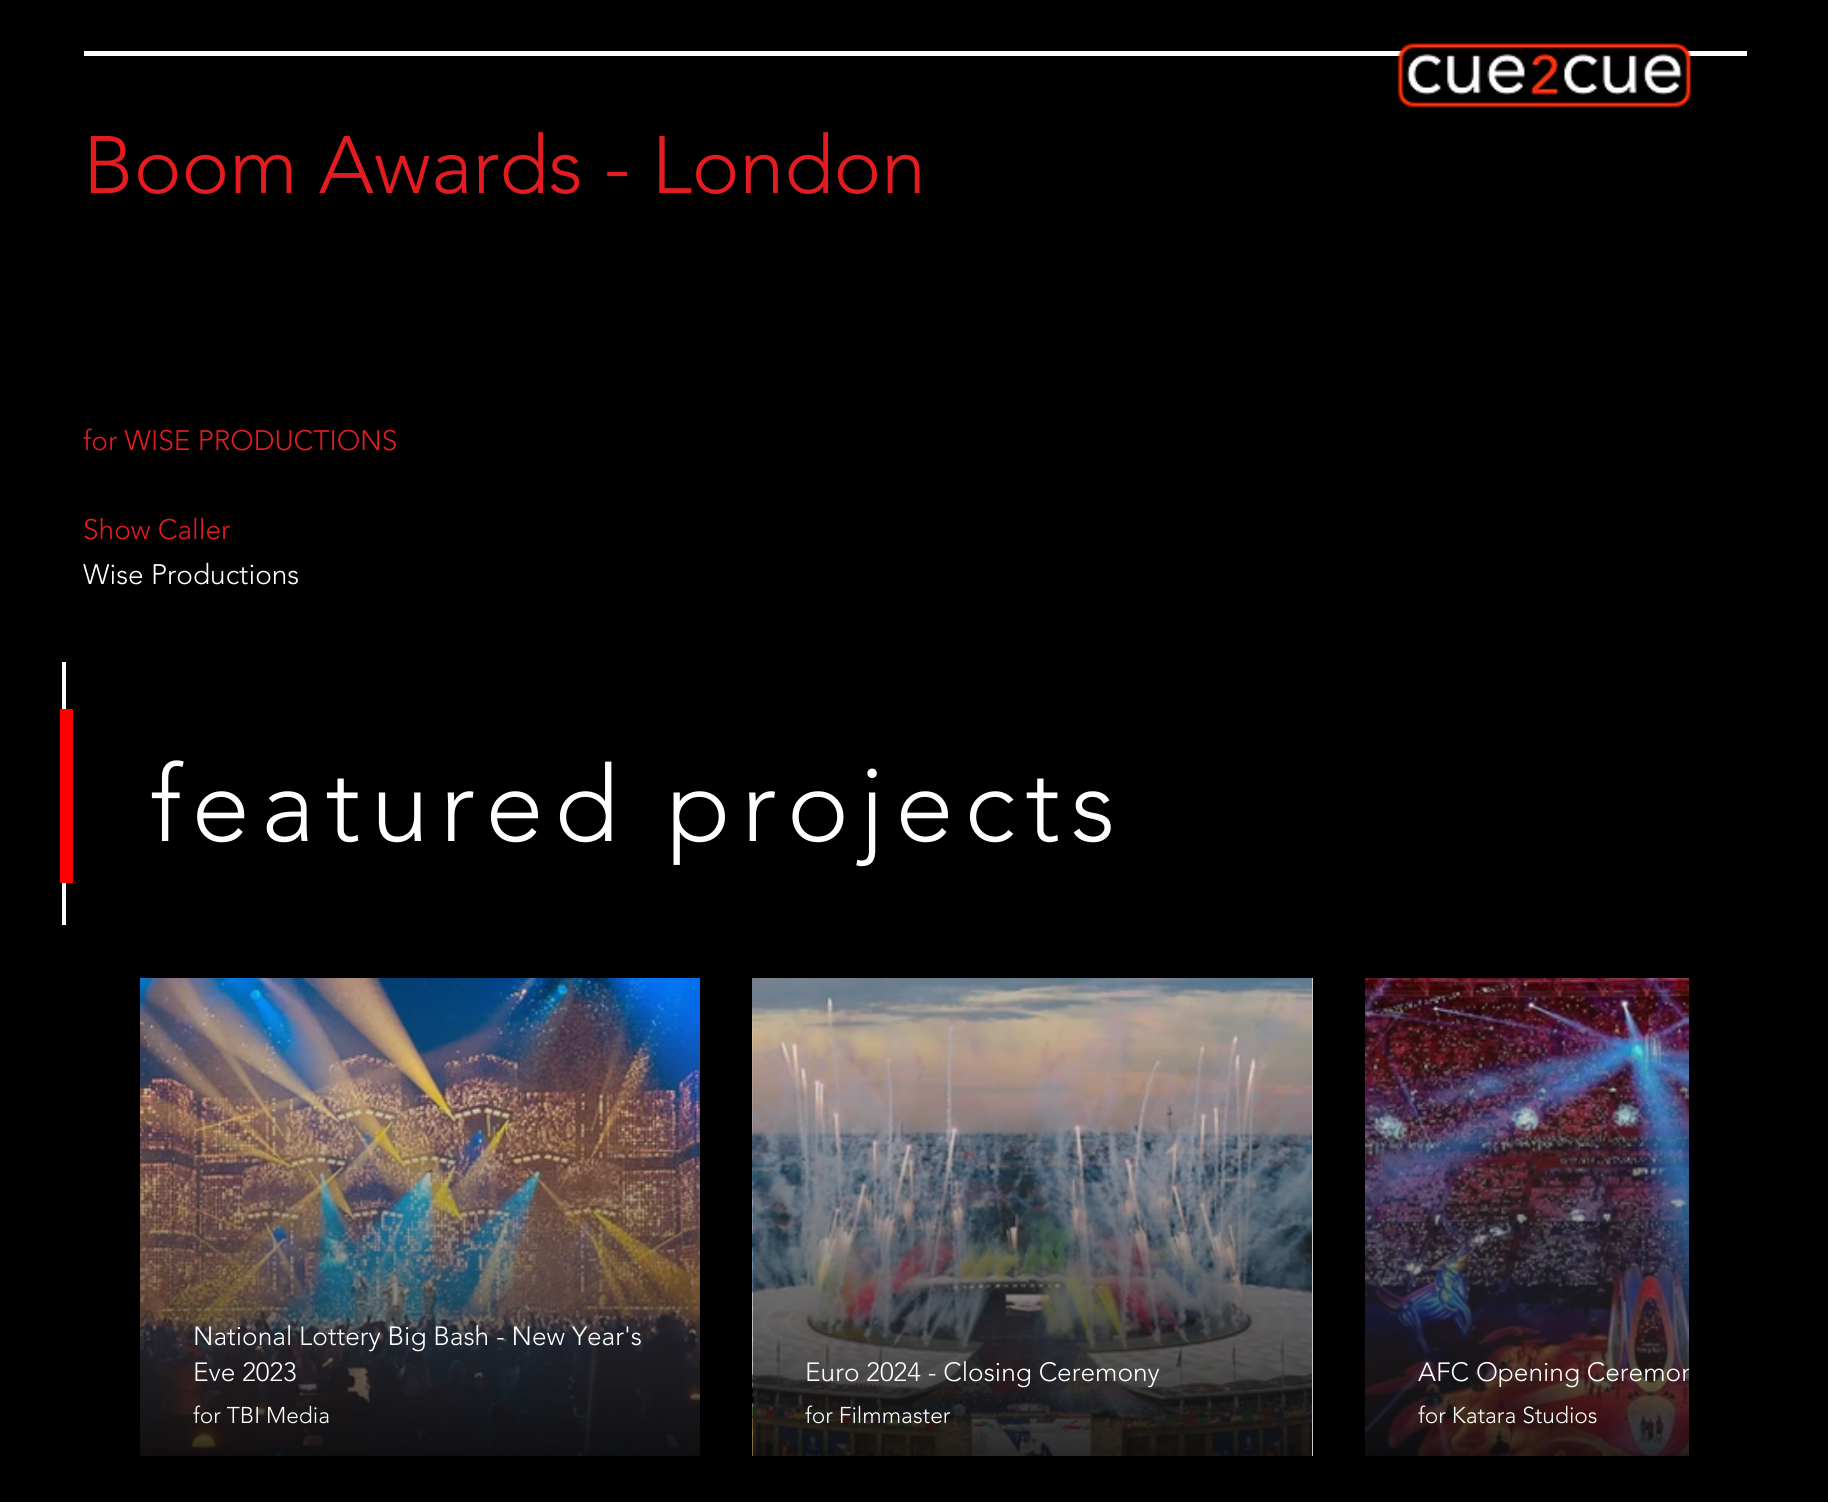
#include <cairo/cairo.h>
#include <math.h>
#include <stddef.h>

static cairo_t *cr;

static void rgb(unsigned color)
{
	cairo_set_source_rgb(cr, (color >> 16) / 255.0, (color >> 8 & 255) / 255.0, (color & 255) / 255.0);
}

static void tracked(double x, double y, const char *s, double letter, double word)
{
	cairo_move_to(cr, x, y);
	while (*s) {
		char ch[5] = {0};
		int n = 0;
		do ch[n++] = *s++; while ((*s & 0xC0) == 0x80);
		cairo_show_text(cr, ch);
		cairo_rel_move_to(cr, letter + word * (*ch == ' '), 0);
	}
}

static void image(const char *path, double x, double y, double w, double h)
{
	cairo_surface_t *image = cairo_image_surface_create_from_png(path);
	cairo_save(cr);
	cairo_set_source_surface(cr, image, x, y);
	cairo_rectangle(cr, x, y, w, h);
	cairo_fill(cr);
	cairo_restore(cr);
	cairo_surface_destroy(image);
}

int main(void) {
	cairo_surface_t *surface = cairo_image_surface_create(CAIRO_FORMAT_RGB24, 1828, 1502);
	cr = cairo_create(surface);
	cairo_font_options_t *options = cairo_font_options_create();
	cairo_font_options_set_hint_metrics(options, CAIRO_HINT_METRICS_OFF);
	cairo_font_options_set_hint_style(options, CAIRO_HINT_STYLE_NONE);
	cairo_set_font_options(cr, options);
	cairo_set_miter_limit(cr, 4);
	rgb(0x000000);
	cairo_paint(cr);
	rgb(0xffffff);
	cairo_rectangle(cr, 84, 51, 1663, 5);
	cairo_fill(cr);
	image("img/1.png", 1397, 42, 294, 66);
	cairo_rectangle(cr, 62, 662, 4, 263);
	cairo_fill(cr);
	rgb(0xff0000);
	cairo_rectangle(cr, 60, 709, 13, 174);
	cairo_fill(cr);
	image("img/2.png", 140, 978, 560, 478);
	rgb(0xcccccc);
	cairo_rectangle(cr, 1312, 978, 1, 478);
	cairo_fill(cr);
	image("img/3.png", 752, 978, 560, 478);
	image("img/4.png", 1365, 978, 324, 478);
	cairo_select_font_face(cr, "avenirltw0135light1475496 Light", CAIRO_FONT_SLANT_NORMAL, CAIRO_FONT_WEIGHT_NORMAL);
	cairo_set_font_size(cr, 80.5);
	rgb(0xe21c21);
	cairo_move_to(cr, 83, 193);
	cairo_show_text(cr, "Boom Awards - London");
	cairo_set_font_size(cr, 28);
	cairo_move_to(cr, 83, 450);
	cairo_show_text(cr, "for WISE PRODUCTIONS");
	cairo_move_to(cr, 83, 539);
	cairo_show_text(cr, "Show Caller");
	rgb(0xffffff);
	cairo_move_to(cr, 83, 584);
	cairo_show_text(cr, "Wise Productions");
	cairo_set_font_size(cr, 105);
	tracked(150, 841, "featured projects", 10.5, 0);
	cairo_set_font_size(cr, 26.25);
	cairo_move_to(cr, 193, 1345);
	cairo_show_text(cr, "National Lottery Big Bash - New Year's");
	cairo_move_to(cr, 193, 1381);
	cairo_show_text(cr, "Eve 2023");
	cairo_set_font_size(cr, 22.75);
	cairo_move_to(cr, 193, 1423);
	cairo_show_text(cr, "for TBI Media");
	cairo_set_font_size(cr, 26.25);
	cairo_move_to(cr, 805, 1381);
	cairo_show_text(cr, "Euro 2024 - Closing Ceremony");
	cairo_set_font_size(cr, 22.75);
	cairo_move_to(cr, 805, 1423);
	cairo_show_text(cr, "for Filmmaster");
	cairo_save(cr);
	cairo_rectangle(cr, 1365, 978, 324, 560);
	cairo_clip(cr);
	cairo_set_font_size(cr, 26.25);
	cairo_move_to(cr, 1418, 1381);
	cairo_show_text(cr, "AFC Opening Ceremon");
	cairo_restore(cr);
	cairo_move_to(cr, 1418, 1423);
	cairo_show_text(cr, "for Katara Studios");
	cairo_surface_write_to_png(surface, "page.png");
	cairo_font_options_destroy(options);
	cairo_destroy(cr);
	cairo_surface_destroy(surface);
	return 0;
}
